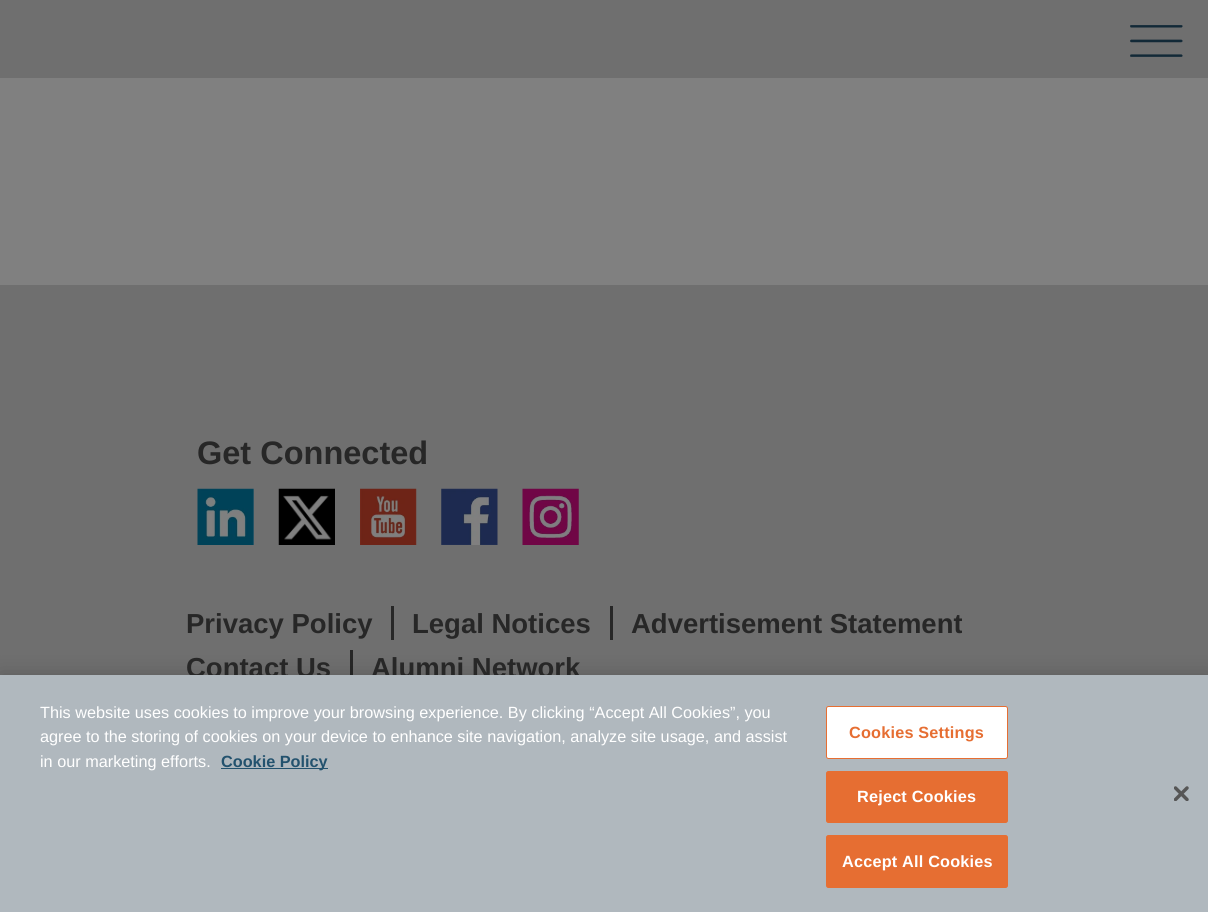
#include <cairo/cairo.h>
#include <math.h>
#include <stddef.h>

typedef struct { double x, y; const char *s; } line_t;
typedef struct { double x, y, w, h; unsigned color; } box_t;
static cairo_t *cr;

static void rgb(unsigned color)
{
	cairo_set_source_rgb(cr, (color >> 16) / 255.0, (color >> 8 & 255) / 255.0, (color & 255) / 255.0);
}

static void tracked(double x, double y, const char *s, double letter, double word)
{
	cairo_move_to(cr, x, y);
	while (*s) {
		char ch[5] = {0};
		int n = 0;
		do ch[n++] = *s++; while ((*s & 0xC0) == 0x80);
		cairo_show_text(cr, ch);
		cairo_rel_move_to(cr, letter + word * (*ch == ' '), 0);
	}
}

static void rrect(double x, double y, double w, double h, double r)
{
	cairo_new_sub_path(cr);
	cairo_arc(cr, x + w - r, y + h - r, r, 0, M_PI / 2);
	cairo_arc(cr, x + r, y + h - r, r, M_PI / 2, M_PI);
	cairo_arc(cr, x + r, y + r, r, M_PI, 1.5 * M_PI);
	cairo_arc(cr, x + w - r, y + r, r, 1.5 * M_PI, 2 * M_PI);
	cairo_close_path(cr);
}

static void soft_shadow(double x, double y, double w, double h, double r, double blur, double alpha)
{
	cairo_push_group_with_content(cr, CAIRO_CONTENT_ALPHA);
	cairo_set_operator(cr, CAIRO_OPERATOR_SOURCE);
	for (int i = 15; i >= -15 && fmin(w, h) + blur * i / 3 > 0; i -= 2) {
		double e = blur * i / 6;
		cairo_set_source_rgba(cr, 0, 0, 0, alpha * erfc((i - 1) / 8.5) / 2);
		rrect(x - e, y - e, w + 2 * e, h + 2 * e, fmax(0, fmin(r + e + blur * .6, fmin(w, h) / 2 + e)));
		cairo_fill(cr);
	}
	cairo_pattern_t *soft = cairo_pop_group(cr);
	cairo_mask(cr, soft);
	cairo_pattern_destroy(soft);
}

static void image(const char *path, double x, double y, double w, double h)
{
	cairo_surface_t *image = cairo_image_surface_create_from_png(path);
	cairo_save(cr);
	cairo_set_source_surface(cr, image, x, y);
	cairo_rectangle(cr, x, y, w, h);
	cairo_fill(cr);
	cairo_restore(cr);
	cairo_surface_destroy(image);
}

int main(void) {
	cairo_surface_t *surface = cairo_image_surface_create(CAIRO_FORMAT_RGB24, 1208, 912);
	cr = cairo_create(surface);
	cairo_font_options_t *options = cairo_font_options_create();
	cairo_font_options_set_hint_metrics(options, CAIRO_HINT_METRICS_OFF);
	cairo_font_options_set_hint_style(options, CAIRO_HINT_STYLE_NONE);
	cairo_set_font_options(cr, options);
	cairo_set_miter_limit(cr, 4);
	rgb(0x808080);
	cairo_paint(cr);
	rgb(0x6f6f6f);
	cairo_rectangle(cr, 0, 0, 1208, 78);
	cairo_fill(cr);
	image("img/1.png", 1130, 25, 53, 32);
	cairo_rectangle(cr, 0, 285, 1208, 390);
	cairo_fill(cr);
	image("img/2.png", 197, 488, 57, 57);
	image("img/3.png", 278, 488, 57, 57);
	image("img/4.png", 360, 488, 57, 57);
	image("img/5.png", 441, 488, 57, 57);
	image("img/6.png", 522, 488, 57, 57);
	{
		static const box_t items[] = {
			{391, 606, 3, 34, 0x272727},
			{610, 606, 3, 34, 0x272727},
			{350, 650, 3, 25, 0x272727},
		};
		for (size_t i = 0; i < sizeof items / sizeof *items; i++) {
			rgb(items[i].color);
			cairo_rectangle(cr, items[i].x, items[i].y, items[i].w, items[i].h);
			cairo_fill(cr);
		}
	}
	rgb(0x000000);
	soft_shadow(0, 675, 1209, 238, 0, 11, 0.2);
	cairo_select_font_face(cr, "Liberation Sans", CAIRO_FONT_SLANT_NORMAL, CAIRO_FONT_WEIGHT_BOLD);
	cairo_set_font_size(cr, 32.5);
	rgb(0x272727);
	cairo_move_to(cr, 197, 464);
	cairo_show_text(cr, "Get Connected");
	cairo_set_font_size(cr, 27.5);
	{
		static const line_t items[] = {
			{186, 633, "Privacy Policy"},
			{412, 633, "Legal Notices"},
			{631, 633, "Advertisement Statement"},
			{186, 677, "Contact Us"},
			{371, 677, "Alumni Network"},
		};
		for (size_t i = 0; i < sizeof items / sizeof *items; i++) {
			cairo_move_to(cr, items[i].x, items[i].y);
			cairo_show_text(cr, items[i].s);
		}
	}
	rgb(0xb0b8be);
	cairo_rectangle(cr, 0, 675, 1208, 237);
	cairo_fill(cr);
	cairo_select_font_face(cr, "Liberation Sans", CAIRO_FONT_SLANT_NORMAL, CAIRO_FONT_WEIGHT_NORMAL);
	cairo_set_font_size(cr, 16.25);
	rgb(0xffffff);
	{
		static const line_t items[] = {
			{40, 718, "This website uses cookies to improve your browsing experience. By clicking “Accept All Cookies”, you"},
			{40, 742, "agree to the storing of cookies on your device to enhance site navigation, analyze site usage, and assist"},
			{40, 767, "in our marketing efforts."},
		};
		for (size_t i = 0; i < sizeof items / sizeof *items; i++) {
			cairo_move_to(cr, items[i].x, items[i].y);
			cairo_show_text(cr, items[i].s);
		}
	}
	rgb(0x23526e);
	cairo_rectangle(cr, 221, 768, 107, 1);
	cairo_fill(cr);
	cairo_select_font_face(cr, "Liberation Sans", CAIRO_FONT_SLANT_NORMAL, CAIRO_FONT_WEIGHT_BOLD);
	cairo_move_to(cr, 221, 767);
	cairo_show_text(cr, "Cookie Policy");
	rgb(0xffffff);
	rrect(826.5, 706.5, 181, 52, 2);
	cairo_fill_preserve(cr);
	rgb(0xe66e32);
	cairo_set_line_width(cr, 1);
	cairo_stroke(cr);
	tracked(849, 738, "Cookies Settings", 0.2, 0);
	rrect(826.5, 771.5, 181, 51, 2);
	cairo_fill_preserve(cr);
	cairo_stroke(cr);
	rgb(0xffffff);
	tracked(857, 802, "Reject Cookies", 0.2, 0);
	rgb(0xe66e32);
	rrect(826.5, 835.5, 181, 52, 2);
	cairo_fill_preserve(cr);
	cairo_stroke(cr);
	rgb(0xffffff);
	tracked(842, 867, "Accept All Cookies", 0.2, 0);
	image("img/7.png", 1174, 786, 15, 15);
	cairo_surface_write_to_png(surface, "page.png");
	cairo_font_options_destroy(options);
	cairo_destroy(cr);
	cairo_surface_destroy(surface);
	return 0;
}
